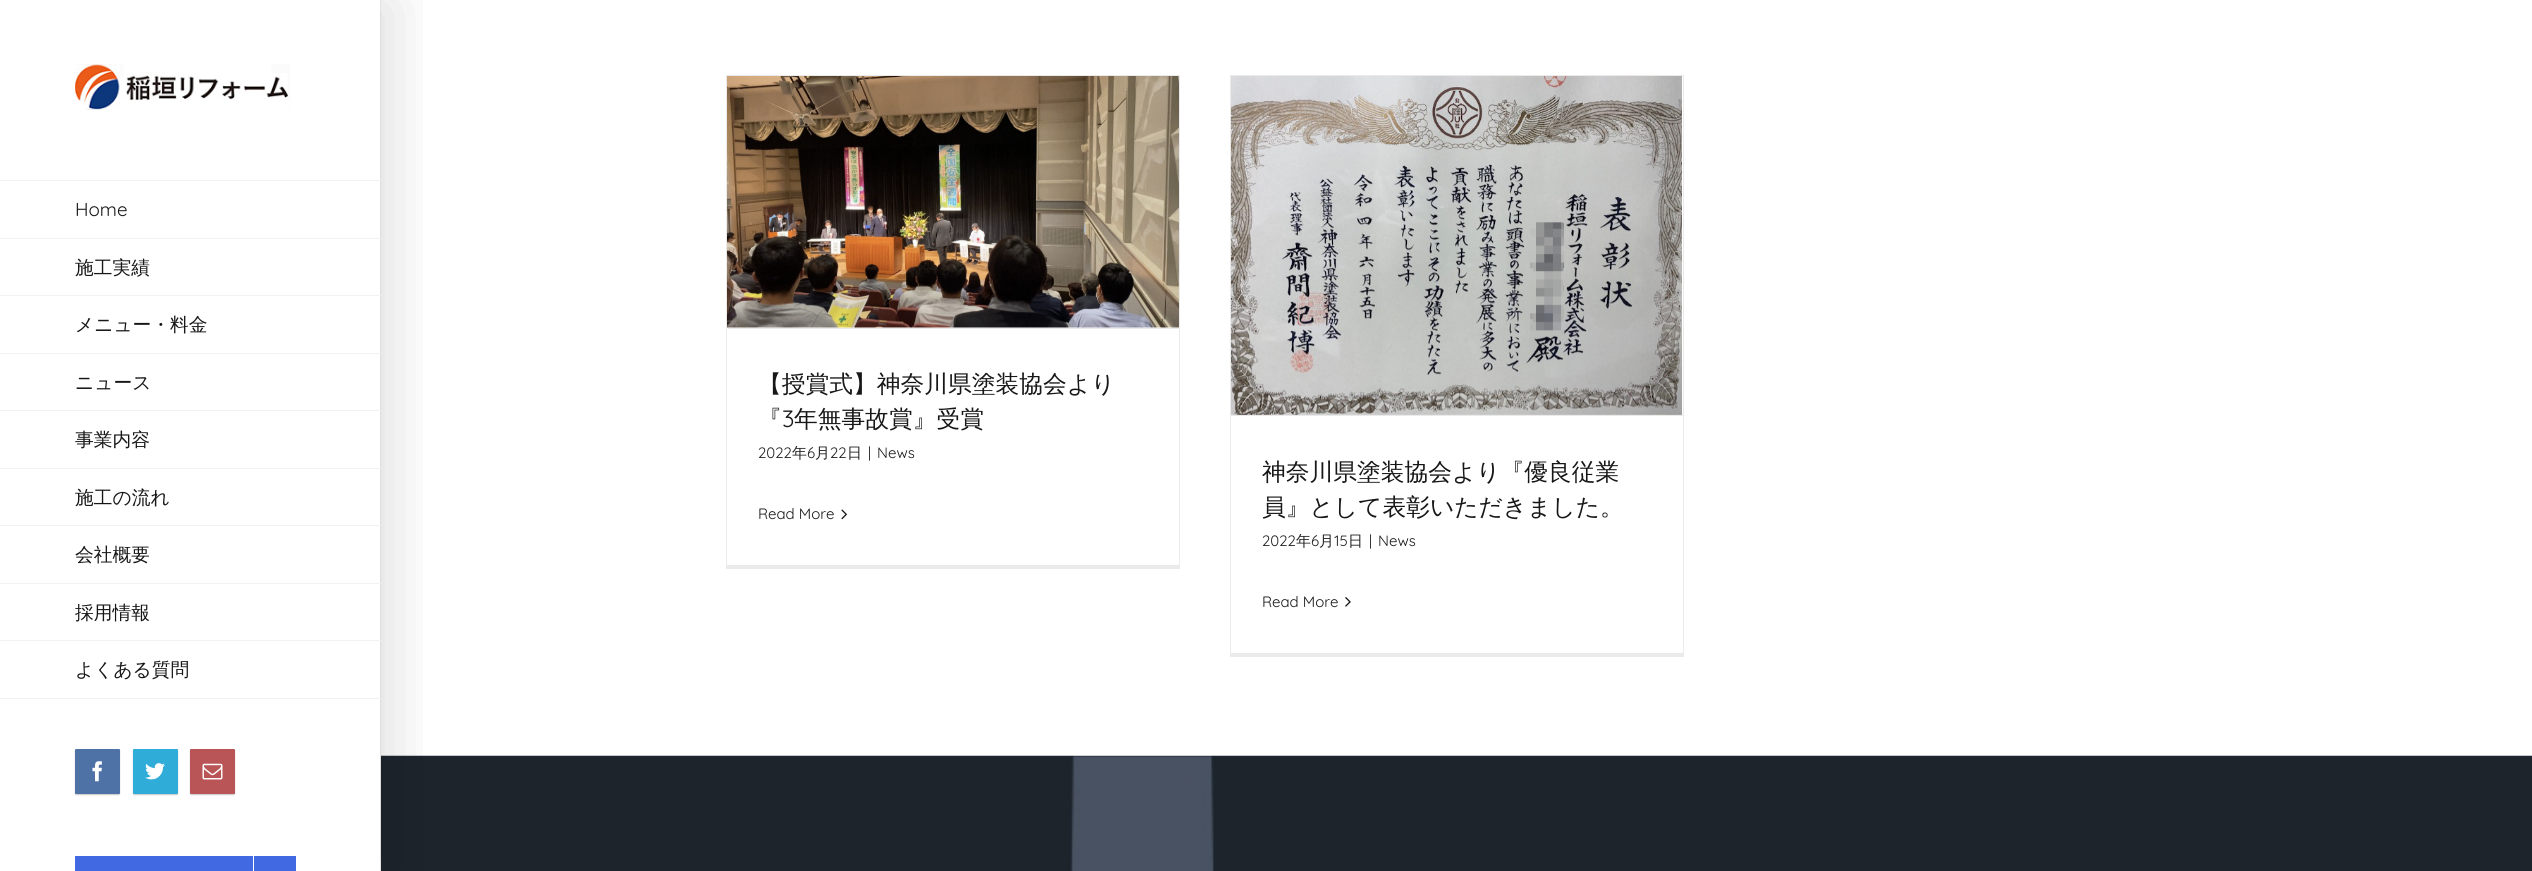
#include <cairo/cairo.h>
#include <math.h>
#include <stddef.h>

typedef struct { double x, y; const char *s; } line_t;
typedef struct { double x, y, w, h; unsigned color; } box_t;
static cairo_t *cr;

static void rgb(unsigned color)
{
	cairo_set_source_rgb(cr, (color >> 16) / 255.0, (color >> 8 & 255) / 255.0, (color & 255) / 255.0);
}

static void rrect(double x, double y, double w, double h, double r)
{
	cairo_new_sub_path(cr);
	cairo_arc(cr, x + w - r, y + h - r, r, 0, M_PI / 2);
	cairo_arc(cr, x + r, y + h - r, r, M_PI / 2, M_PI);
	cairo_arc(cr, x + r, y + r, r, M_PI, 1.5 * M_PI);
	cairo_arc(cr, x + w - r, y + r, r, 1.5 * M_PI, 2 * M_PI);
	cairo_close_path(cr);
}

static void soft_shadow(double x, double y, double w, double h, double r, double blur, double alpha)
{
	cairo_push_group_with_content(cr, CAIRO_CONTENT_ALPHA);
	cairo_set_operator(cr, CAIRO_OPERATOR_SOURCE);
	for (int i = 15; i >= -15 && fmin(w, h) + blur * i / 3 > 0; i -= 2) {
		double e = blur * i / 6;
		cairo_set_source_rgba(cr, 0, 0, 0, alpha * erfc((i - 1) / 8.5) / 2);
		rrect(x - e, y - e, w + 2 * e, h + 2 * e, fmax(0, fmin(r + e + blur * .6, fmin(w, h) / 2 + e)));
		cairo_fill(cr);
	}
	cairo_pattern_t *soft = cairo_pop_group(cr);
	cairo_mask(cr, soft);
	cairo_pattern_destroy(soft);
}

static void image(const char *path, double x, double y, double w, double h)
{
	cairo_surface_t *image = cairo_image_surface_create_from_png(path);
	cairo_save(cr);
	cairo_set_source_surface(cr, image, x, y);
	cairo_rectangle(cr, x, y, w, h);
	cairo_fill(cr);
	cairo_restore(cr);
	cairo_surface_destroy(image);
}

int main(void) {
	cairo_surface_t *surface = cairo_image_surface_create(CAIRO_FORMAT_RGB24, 2532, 871);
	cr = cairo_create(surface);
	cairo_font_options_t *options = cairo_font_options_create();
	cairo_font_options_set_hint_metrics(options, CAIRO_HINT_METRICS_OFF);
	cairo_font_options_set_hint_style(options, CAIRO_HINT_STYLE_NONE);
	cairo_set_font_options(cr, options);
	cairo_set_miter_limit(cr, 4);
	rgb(0xffffff);
	cairo_paint(cr);
	rgb(0xf2f2f2);
	cairo_rectangle(cr, 380, 0, 1, 871);
	cairo_fill(cr);
	image("img/1.png", 75, 64, 215, 46);
	rgb(0x000000);
	soft_shadow(75, 750, 45, 45, 1, 0.5, 0.2);
	rgb(0x4e72a6);
	rrect(75.5, 749.5, 44, 44, 0.5);
	cairo_fill_preserve(cr);
	cairo_set_line_width(cr, 1);
	cairo_stroke(cr);
	image("img/2.png", 92, 761, 10, 21);
	rgb(0x000000);
	soft_shadow(133, 750, 45, 45, 1, 0.5, 0.2);
	rgb(0x2facd8);
	rrect(133.5, 749.5, 44, 44, 0.5);
	cairo_fill_preserve(cr);
	cairo_stroke(cr);
	image("img/3.png", 145, 763, 20, 17);
	rgb(0x000000);
	soft_shadow(190, 750, 45, 45, 1, 0.5, 0.2);
	rgb(0xba5557);
	rrect(190.5, 749.5, 44, 44, 0.5);
	cairo_fill_preserve(cr);
	cairo_stroke(cr);
	image("img/4.png", 202, 763, 21, 17);
	{
		static const box_t items[] = {
			{75, 856, 221, 15, 0x4169e1},
			{253, 856, 1, 15, 0xffffff},
			{381, 756, 2151, 2, 0x1d2939},
		};
		for (size_t i = 0; i < sizeof items / sizeof *items; i++) {
			rgb(items[i].color);
			cairo_rectangle(cr, items[i].x, items[i].y, items[i].w, items[i].h);
			cairo_fill(cr);
		}
	}
	image("img/9.png", 381, 755, 2151, 116);
	cairo_save(cr);
	cairo_rectangle(cr, 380, 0, 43, 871);
	cairo_clip(cr);
	rgb(0x000000);
	soft_shadow(15, 3, 375, 866, 0, 31, 0.14);
	cairo_restore(cr);
	{
		static const box_t items[] = {
			{0, 180, 381, 1, 0xf2f2f2},
			{0, 238, 381, 1, 0xf2f2f2},
			{0, 295, 381, 1, 0xf2f2f2},
			{0, 353, 381, 1, 0xf2f2f2},
			{0, 410, 381, 1, 0xf2f2f2},
			{0, 468, 381, 1, 0xf2f2f2},
			{0, 525, 381, 1, 0xf2f2f2},
			{0, 583, 381, 1, 0xf2f2f2},
			{0, 640, 381, 1, 0xf2f2f2},
			{0, 698, 381, 1, 0xf2f2f2},
			{726, 75, 454, 1, 0xebeaea},
			{1179, 75, 1, 494, 0xebeaea},
			{726, 565, 454, 4, 0xebeaea},
			{726, 75, 1, 494, 0xebeaea},
			{728, 328, 451, 1, 0xebeaea},
		};
		for (size_t i = 0; i < sizeof items / sizeof *items; i++) {
			rgb(items[i].color);
			cairo_rectangle(cr, items[i].x, items[i].y, items[i].w, items[i].h);
			cairo_fill(cr);
		}
	}
	image("img/5.png", 727, 76, 452, 252);
	image("img/6.png", 841, 509, 6, 11);
	{
		static const box_t items[] = {
			{1230, 75, 454, 1, 0xebeaea},
			{1683, 75, 1, 581, 0xebeaea},
			{1230, 653, 454, 4, 0xebeaea},
			{1230, 75, 1, 581, 0xebeaea},
			{1231, 415, 452, 1, 0xebeaea},
		};
		for (size_t i = 0; i < sizeof items / sizeof *items; i++) {
			rgb(items[i].color);
			cairo_rectangle(cr, items[i].x, items[i].y, items[i].w, items[i].h);
			cairo_fill(cr);
		}
	}
	image("img/7.png", 1231, 76, 451, 339);
	image("img/8.png", 1345, 597, 6, 10);
	cairo_select_font_face(cr, "Quicksand", CAIRO_FONT_SLANT_NORMAL, CAIRO_FONT_WEIGHT_NORMAL);
	cairo_set_font_size(cr, 18.75);
	rgb(0x171717);
	cairo_move_to(cr, 75, 216);
	cairo_show_text(cr, "Home");
	cairo_select_font_face(cr, "WenQuanYi Zen Hei Medium", CAIRO_FONT_SLANT_NORMAL, CAIRO_FONT_WEIGHT_NORMAL);
	{
		static const line_t items[] = {
			{75, 274, "施工実績"},
			{75, 331, "メニュー・料金"},
			{75, 389, "ニュース"},
			{75, 446, "事業内容"},
			{75, 504, "施工の流れ"},
			{75, 561, "会社概要"},
			{75, 619, "採用情報"},
			{75, 676, "よくある質問"},
		};
		for (size_t i = 0; i < sizeof items / sizeof *items; i++) {
			cairo_move_to(cr, items[i].x, items[i].y);
			cairo_show_text(cr, items[i].s);
		}
	}
	cairo_set_font_size(cr, 23.75);
	cairo_move_to(cr, 758, 392);
	cairo_show_text(cr, "【授賞式】神奈川県塗装協会より");
	cairo_move_to(cr, 758, 427);
	cairo_show_text(cr, "『");
	cairo_select_font_face(cr, "Quicksand", CAIRO_FONT_SLANT_NORMAL, CAIRO_FONT_WEIGHT_NORMAL);
	cairo_move_to(cr, 782, 427);
	cairo_show_text(cr, "3");
	cairo_select_font_face(cr, "WenQuanYi Zen Hei Medium", CAIRO_FONT_SLANT_NORMAL, CAIRO_FONT_WEIGHT_NORMAL);
	cairo_move_to(cr, 794, 427);
	cairo_show_text(cr, "年無事故賞』受賞");
	cairo_select_font_face(cr, "Quicksand", CAIRO_FONT_SLANT_NORMAL, CAIRO_FONT_WEIGHT_NORMAL);
	cairo_set_font_size(cr, 15);
	rgb(0x222222);
	cairo_move_to(cr, 758, 458);
	cairo_show_text(cr, "2022");
	cairo_select_font_face(cr, "WenQuanYi Zen Hei Medium", CAIRO_FONT_SLANT_NORMAL, CAIRO_FONT_WEIGHT_NORMAL);
	cairo_move_to(cr, 792, 458);
	cairo_show_text(cr, "年");
	cairo_select_font_face(cr, "Quicksand", CAIRO_FONT_SLANT_NORMAL, CAIRO_FONT_WEIGHT_NORMAL);
	cairo_move_to(cr, 807, 458);
	cairo_show_text(cr, "6");
	cairo_select_font_face(cr, "WenQuanYi Zen Hei Medium", CAIRO_FONT_SLANT_NORMAL, CAIRO_FONT_WEIGHT_NORMAL);
	cairo_move_to(cr, 815, 458);
	cairo_show_text(cr, "月");
	cairo_select_font_face(cr, "Quicksand", CAIRO_FONT_SLANT_NORMAL, CAIRO_FONT_WEIGHT_NORMAL);
	cairo_move_to(cr, 830, 458);
	cairo_show_text(cr, "22");
	cairo_select_font_face(cr, "WenQuanYi Zen Hei Medium", CAIRO_FONT_SLANT_NORMAL, CAIRO_FONT_WEIGHT_NORMAL);
	cairo_move_to(cr, 847, 458);
	cairo_show_text(cr, "日");
	cairo_select_font_face(cr, "Quicksand", CAIRO_FONT_SLANT_NORMAL, CAIRO_FONT_WEIGHT_NORMAL);
	cairo_move_to(cr, 868, 458);
	cairo_show_text(cr, "|");
	rgb(0x171717);
	cairo_move_to(cr, 877, 458);
	cairo_show_text(cr, "News");
	cairo_move_to(cr, 758, 519);
	cairo_show_text(cr, "Read More");
	cairo_select_font_face(cr, "WenQuanYi Zen Hei Medium", CAIRO_FONT_SLANT_NORMAL, CAIRO_FONT_WEIGHT_NORMAL);
	cairo_set_font_size(cr, 23.75);
	cairo_move_to(cr, 1262, 480);
	cairo_show_text(cr, "神奈川県塗装協会より『優良従業");
	cairo_move_to(cr, 1262, 515);
	cairo_show_text(cr, "員』として表彰いただきました。");
	cairo_select_font_face(cr, "Quicksand", CAIRO_FONT_SLANT_NORMAL, CAIRO_FONT_WEIGHT_NORMAL);
	cairo_set_font_size(cr, 15);
	rgb(0x222222);
	cairo_move_to(cr, 1262, 546);
	cairo_show_text(cr, "2022");
	cairo_select_font_face(cr, "WenQuanYi Zen Hei Medium", CAIRO_FONT_SLANT_NORMAL, CAIRO_FONT_WEIGHT_NORMAL);
	cairo_move_to(cr, 1296, 546);
	cairo_show_text(cr, "年");
	cairo_select_font_face(cr, "Quicksand", CAIRO_FONT_SLANT_NORMAL, CAIRO_FONT_WEIGHT_NORMAL);
	cairo_move_to(cr, 1311, 546);
	cairo_show_text(cr, "6");
	cairo_select_font_face(cr, "WenQuanYi Zen Hei Medium", CAIRO_FONT_SLANT_NORMAL, CAIRO_FONT_WEIGHT_NORMAL);
	cairo_move_to(cr, 1319, 546);
	cairo_show_text(cr, "月");
	cairo_select_font_face(cr, "Quicksand", CAIRO_FONT_SLANT_NORMAL, CAIRO_FONT_WEIGHT_NORMAL);
	cairo_move_to(cr, 1334, 546);
	cairo_show_text(cr, "15");
	cairo_select_font_face(cr, "WenQuanYi Zen Hei Medium", CAIRO_FONT_SLANT_NORMAL, CAIRO_FONT_WEIGHT_NORMAL);
	cairo_move_to(cr, 1348, 546);
	cairo_show_text(cr, "日");
	cairo_select_font_face(cr, "Quicksand", CAIRO_FONT_SLANT_NORMAL, CAIRO_FONT_WEIGHT_NORMAL);
	cairo_move_to(cr, 1369, 546);
	cairo_show_text(cr, "|");
	rgb(0x171717);
	cairo_move_to(cr, 1378, 546);
	cairo_show_text(cr, "News");
	cairo_move_to(cr, 1262, 607);
	cairo_show_text(cr, "Read More");
	cairo_surface_write_to_png(surface, "page.png");
	cairo_font_options_destroy(options);
	cairo_destroy(cr);
	cairo_surface_destroy(surface);
	return 0;
}
